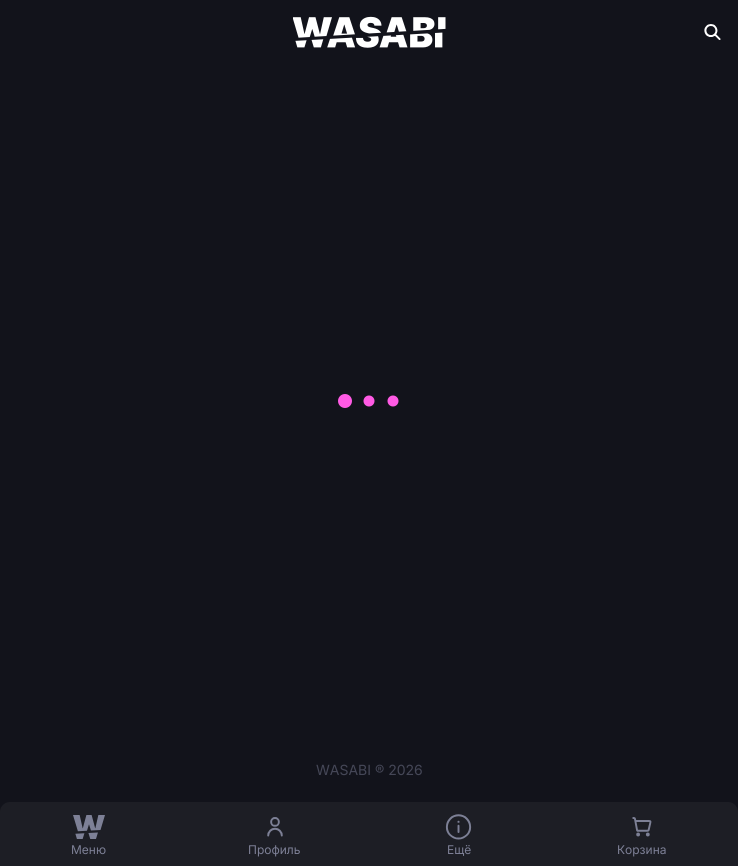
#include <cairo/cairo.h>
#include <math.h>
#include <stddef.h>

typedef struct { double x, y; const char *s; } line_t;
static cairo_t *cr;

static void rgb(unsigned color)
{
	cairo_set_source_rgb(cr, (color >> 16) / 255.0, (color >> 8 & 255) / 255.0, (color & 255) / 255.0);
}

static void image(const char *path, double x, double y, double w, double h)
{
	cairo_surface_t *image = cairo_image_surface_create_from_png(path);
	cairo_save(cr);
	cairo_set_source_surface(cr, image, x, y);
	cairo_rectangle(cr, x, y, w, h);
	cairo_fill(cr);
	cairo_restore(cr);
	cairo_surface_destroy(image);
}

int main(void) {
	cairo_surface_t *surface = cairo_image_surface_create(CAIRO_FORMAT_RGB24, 738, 866);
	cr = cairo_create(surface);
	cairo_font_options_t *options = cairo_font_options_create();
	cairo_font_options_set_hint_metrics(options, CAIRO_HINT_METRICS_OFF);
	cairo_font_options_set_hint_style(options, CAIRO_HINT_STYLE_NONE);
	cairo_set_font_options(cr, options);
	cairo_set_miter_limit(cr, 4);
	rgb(0x12131b);
	cairo_paint(cr);
	image("img/1.png", 293, 16, 153, 32);
	image("img/2.png", 704, 24, 17, 16);
	rgb(0xff5ae4);
	cairo_arc(cr, 345, 401, 7, 0, 2 * M_PI);
	cairo_fill(cr);
	cairo_arc(cr, 369, 401, 5.5, 0, 2 * M_PI);
	cairo_fill(cr);
	cairo_arc(cr, 393, 401, 5.5, 0, 2 * M_PI);
	cairo_fill(cr);
	rgb(0x1d1e25);
	cairo_new_path(cr);
	cairo_move_to(cr, 10, 802);
	cairo_line_to(cr, 728, 802);
	cairo_curve_to(cr, 733.5, 802, 738, 806.5, 738, 812);
	cairo_line_to(cr, 738, 866);
	cairo_line_to(cr, 0, 866);
	cairo_line_to(cr, 0, 812);
	cairo_curve_to(cr, 0, 806.5, 4.5, 802, 10, 802);
	cairo_close_path(cr);
	cairo_fill(cr);
	image("img/3.png", 73, 815, 32, 24);
	image("img/4.png", 267, 817, 16, 20);
	image("img/5.png", 445, 814, 27, 26);
	image("img/6.png", 632, 817, 20, 20);
	cairo_select_font_face(cr, "Inter", CAIRO_FONT_SLANT_NORMAL, CAIRO_FONT_WEIGHT_NORMAL);
	cairo_set_font_size(cr, 14);
	rgb(0x454757);
	cairo_move_to(cr, 316, 775);
	cairo_show_text(cr, "WASABI ® 2026");
	cairo_set_font_size(cr, 12);
	rgb(0x7d8096);
	{
		static const line_t items[] = {
			{71, 854, "Меню"},
			{248, 854, "Профиль"},
			{447, 854, "Ещё"},
			{617, 854, "Корзина"},
		};
		for (size_t i = 0; i < sizeof items / sizeof *items; i++) {
			cairo_move_to(cr, items[i].x, items[i].y);
			cairo_show_text(cr, items[i].s);
		}
	}
	cairo_surface_write_to_png(surface, "page.png");
	cairo_font_options_destroy(options);
	cairo_destroy(cr);
	cairo_surface_destroy(surface);
	return 0;
}
